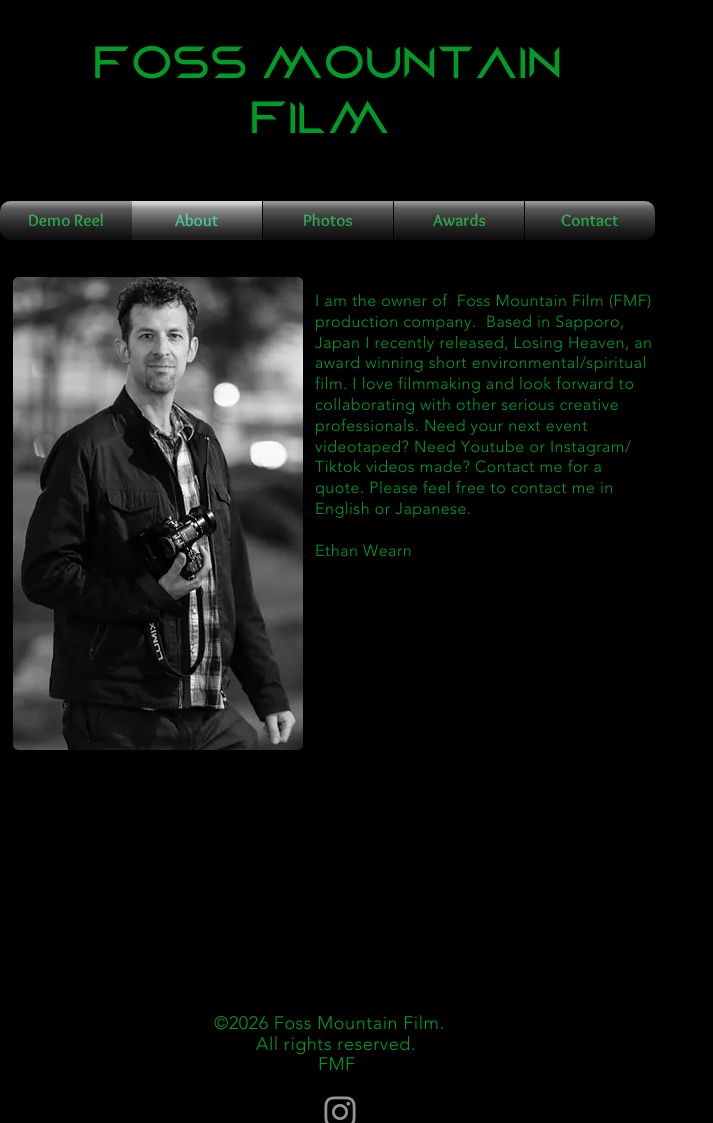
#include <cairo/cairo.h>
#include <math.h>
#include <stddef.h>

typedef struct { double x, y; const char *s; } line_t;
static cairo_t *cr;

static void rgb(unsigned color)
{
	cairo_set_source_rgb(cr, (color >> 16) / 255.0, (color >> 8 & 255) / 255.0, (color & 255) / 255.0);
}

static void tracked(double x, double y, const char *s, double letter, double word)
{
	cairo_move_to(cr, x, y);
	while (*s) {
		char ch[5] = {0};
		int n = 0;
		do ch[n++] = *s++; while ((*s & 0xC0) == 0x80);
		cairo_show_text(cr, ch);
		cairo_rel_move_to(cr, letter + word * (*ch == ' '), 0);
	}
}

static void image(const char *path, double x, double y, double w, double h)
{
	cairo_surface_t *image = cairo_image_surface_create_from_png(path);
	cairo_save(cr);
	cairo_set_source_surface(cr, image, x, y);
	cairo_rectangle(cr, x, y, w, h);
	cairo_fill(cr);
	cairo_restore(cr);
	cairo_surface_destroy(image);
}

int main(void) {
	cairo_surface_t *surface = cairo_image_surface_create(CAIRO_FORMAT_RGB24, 713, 1123);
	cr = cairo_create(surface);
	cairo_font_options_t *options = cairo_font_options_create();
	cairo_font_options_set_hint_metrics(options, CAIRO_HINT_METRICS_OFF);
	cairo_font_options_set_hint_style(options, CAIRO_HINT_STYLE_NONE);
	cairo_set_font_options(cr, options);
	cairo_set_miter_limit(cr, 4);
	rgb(0x000000);
	cairo_paint(cr);
	image("img/1.png", 0, 201, 655, 39);
	rgb(0x000000);
	cairo_new_path(cr);
	cairo_move_to(cr, 10, 201);
	cairo_line_to(cr, 131, 201);
	cairo_line_to(cr, 131, 240);
	cairo_line_to(cr, 10, 240);
	cairo_curve_to(cr, 4.5, 240, 0, 235.5, 0, 230);
	cairo_line_to(cr, 0, 211);
	cairo_curve_to(cr, 0, 205.5, 4.5, 201, 10, 201);
	cairo_close_path(cr);
	cairo_fill(cr);
	cairo_rectangle(cr, 262, 201, 262, 39);
	cairo_fill(cr);
	cairo_new_path(cr);
	cairo_move_to(cr, 524, 201);
	cairo_line_to(cr, 645, 201);
	cairo_curve_to(cr, 650.5, 201, 655, 205.5, 655, 211);
	cairo_line_to(cr, 655, 230);
	cairo_curve_to(cr, 655, 235.5, 650.5, 240, 645, 240);
	cairo_line_to(cr, 524, 240);
	cairo_close_path(cr);
	cairo_fill(cr);
	image("img/12.png", 13, 277, 290, 473);
	image("img/13.png", 324, 1096, 32, 27);
	cairo_select_font_face(cr, "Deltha", CAIRO_FONT_SLANT_NORMAL, CAIRO_FONT_WEIGHT_NORMAL);
	cairo_set_font_size(cr, 45);
	rgb(0x009c27);
	cairo_move_to(cr, 93, 78);
	cairo_show_text(cr, "Foss Mountain");
	cairo_move_to(cr, 250, 133);
	cairo_show_text(cr, "Film");
	cairo_select_font_face(cr, "Overlock", CAIRO_FONT_SLANT_NORMAL, CAIRO_FONT_WEIGHT_BOLD);
	cairo_set_font_size(cr, 17);
	cairo_move_to(cr, 28, 226);
	cairo_show_text(cr, "Demo Reel");
	image("img/2.png", 0, 201, 131, 39);
	image("img/3.png", 28, 213, 75, 14);
	rgb(0x20ce88);
	cairo_move_to(cr, 175, 226);
	cairo_show_text(cr, "About");
	image("img/4.png", 132, 201, 130, 39);
	image("img/5.png", 132, 206, 130, 32);
	rgb(0x009c27);
	cairo_move_to(cr, 303, 226);
	cairo_show_text(cr, "Photos");
	image("img/6.png", 263, 201, 130, 39);
	image("img/7.png", 304, 213, 49, 14);
	cairo_move_to(cr, 433, 226);
	cairo_show_text(cr, "Awards");
	image("img/8.png", 394, 201, 130, 39);
	image("img/9.png", 432, 213, 53, 14);
	cairo_move_to(cr, 561, 226);
	cairo_show_text(cr, "Contact");
	image("img/10.png", 525, 201, 130, 39);
	image("img/11.png", 562, 214, 57, 13);
	cairo_select_font_face(cr, "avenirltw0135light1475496 Light", CAIRO_FONT_SLANT_NORMAL, CAIRO_FONT_WEIGHT_NORMAL);
	cairo_set_font_size(cr, 16);
	{
		static const line_t items[] = {
			{315, 306, "I am the owner of  Foss Mountain Film (FMF)"},
			{315, 327, "production company.  Based in Sapporo,"},
			{315, 348, "Japan I recently released, Losing Heaven, an"},
			{315, 368, "award winning short environmental/spiritual"},
			{315, 389, "film. I love filmmaking and look forward to"},
			{315, 410, "collaborating with other serious creative"},
			{315, 431, "professionals. Need your next event"},
			{315, 452, "videotaped? Need Youtube or Instagram/"},
			{315, 472, "Tiktok videos made? Contact me for a"},
			{315, 493, "quote. Please feel free to contact me in"},
			{315, 514, "English or Japanese."},
			{315, 556, "Ethan Wearn"},
		};
		for (size_t i = 0; i < sizeof items / sizeof *items; i++) {
			tracked(items[i].x, items[i].y, items[i].s, 0.5, 0);
		}
	}
	cairo_set_font_size(cr, 18);
	{
		static const line_t items[] = {
			{214, 1029, "©2026 Foss Mountain Film."},
			{256, 1050, "All rights reserved."},
			{318, 1070, "FMF"},
		};
		for (size_t i = 0; i < sizeof items / sizeof *items; i++) {
			tracked(items[i].x, items[i].y, items[i].s, 0.55, 0);
		}
	}
	cairo_surface_write_to_png(surface, "page.png");
	cairo_font_options_destroy(options);
	cairo_destroy(cr);
	cairo_surface_destroy(surface);
	return 0;
}
